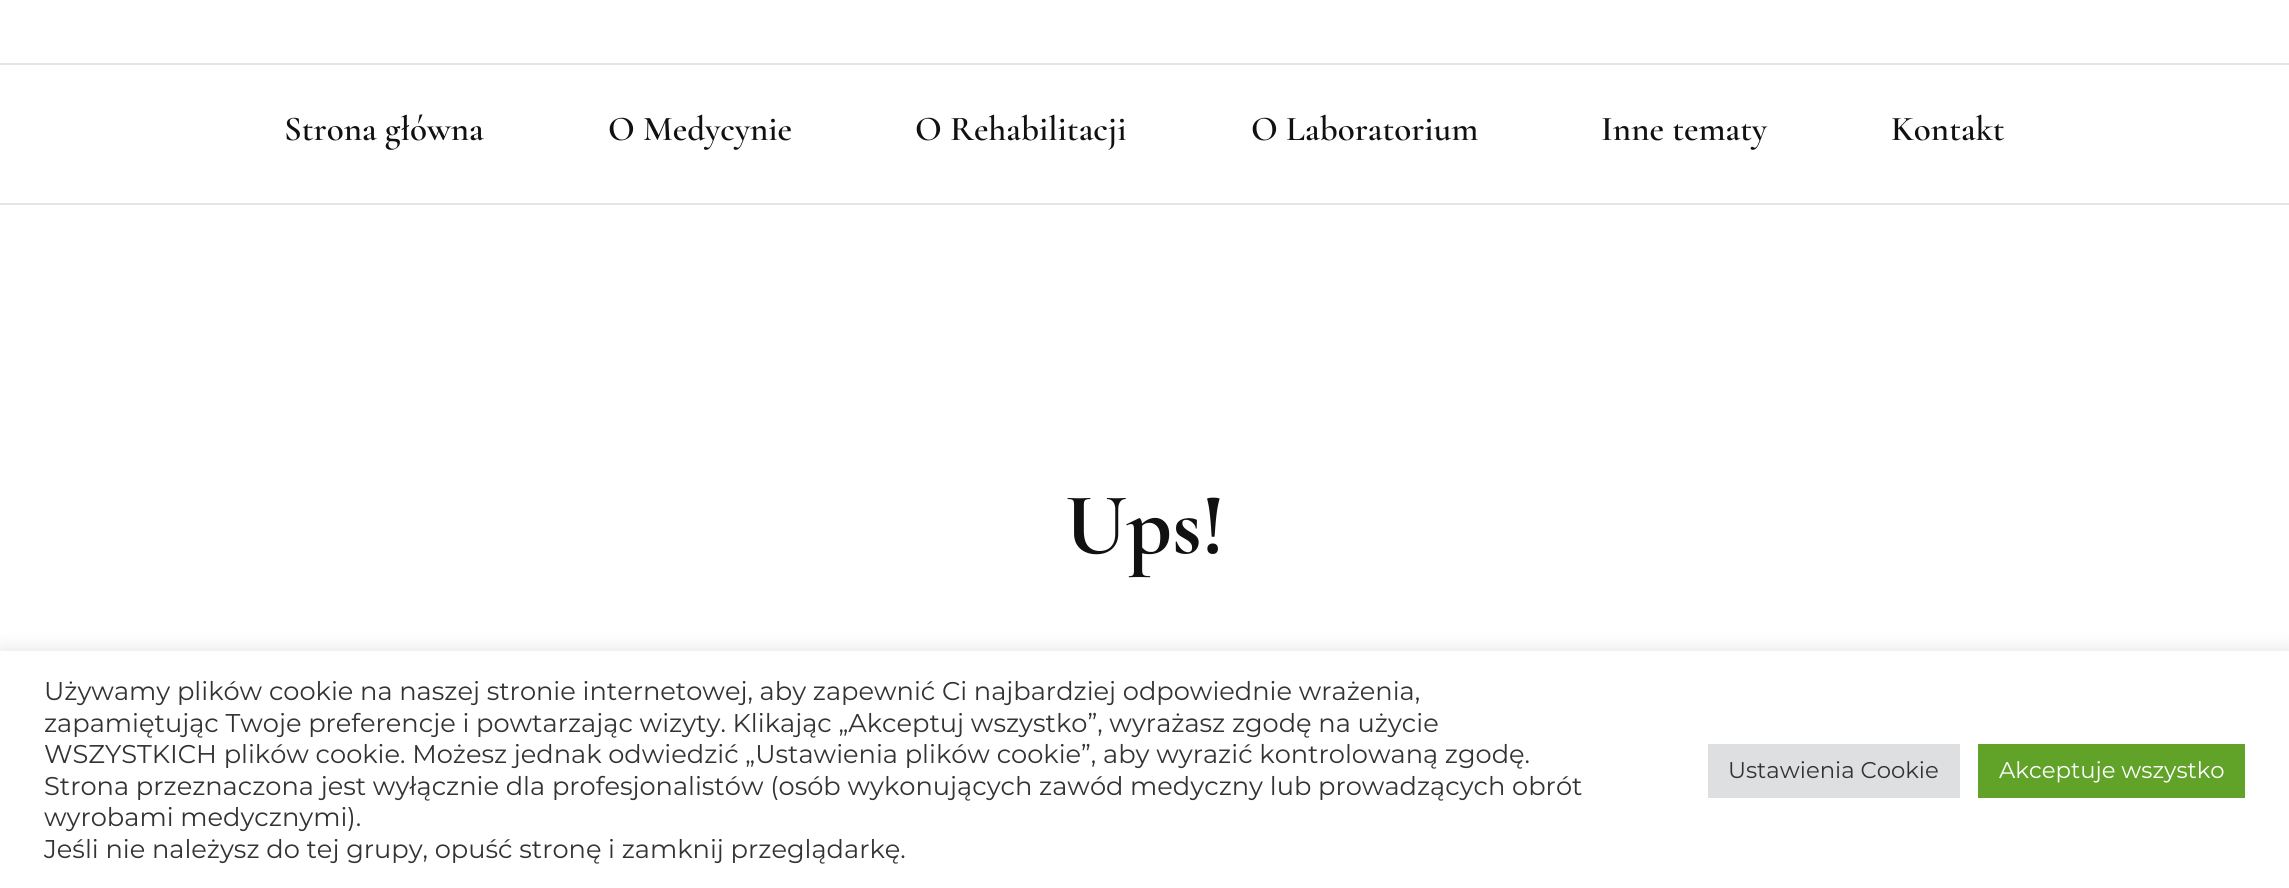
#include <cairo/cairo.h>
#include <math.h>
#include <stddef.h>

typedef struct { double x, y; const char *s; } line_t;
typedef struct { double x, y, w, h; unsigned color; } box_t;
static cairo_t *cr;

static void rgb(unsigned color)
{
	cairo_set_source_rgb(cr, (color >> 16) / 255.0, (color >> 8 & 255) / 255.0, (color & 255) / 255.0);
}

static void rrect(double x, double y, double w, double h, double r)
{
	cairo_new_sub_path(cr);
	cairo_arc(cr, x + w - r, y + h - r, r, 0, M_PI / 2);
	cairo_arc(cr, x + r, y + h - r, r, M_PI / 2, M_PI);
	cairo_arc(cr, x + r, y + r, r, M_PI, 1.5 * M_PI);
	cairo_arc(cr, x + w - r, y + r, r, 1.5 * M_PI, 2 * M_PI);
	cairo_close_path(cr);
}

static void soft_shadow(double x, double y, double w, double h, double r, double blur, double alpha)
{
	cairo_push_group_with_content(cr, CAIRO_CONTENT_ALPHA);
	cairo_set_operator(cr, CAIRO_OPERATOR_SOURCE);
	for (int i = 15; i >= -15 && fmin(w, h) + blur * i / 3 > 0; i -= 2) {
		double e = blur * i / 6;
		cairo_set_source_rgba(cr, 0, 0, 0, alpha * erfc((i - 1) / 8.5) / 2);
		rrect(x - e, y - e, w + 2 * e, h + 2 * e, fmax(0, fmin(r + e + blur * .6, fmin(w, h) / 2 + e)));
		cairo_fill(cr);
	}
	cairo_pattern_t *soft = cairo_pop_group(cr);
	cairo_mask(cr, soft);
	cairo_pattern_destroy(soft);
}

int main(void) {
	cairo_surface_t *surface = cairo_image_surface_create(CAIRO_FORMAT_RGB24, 2289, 888);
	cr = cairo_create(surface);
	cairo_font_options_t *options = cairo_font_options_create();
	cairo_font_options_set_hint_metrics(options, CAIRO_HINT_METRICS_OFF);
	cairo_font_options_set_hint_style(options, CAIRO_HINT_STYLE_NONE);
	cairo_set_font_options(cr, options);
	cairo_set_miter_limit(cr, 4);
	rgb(0xffffff);
	cairo_paint(cr);
	rgb(0xe5e5e5);
	cairo_rectangle(cr, 0, 63, 2289, 2);
	cairo_fill(cr);
	cairo_rectangle(cr, 0, 203, 2289, 2);
	cairo_fill(cr);
	rgb(0xacabab);
	soft_shadow(0, 649, 2289, 238, 0, 9, 0.3);
	{
		static const box_t items[] = {
			{0, 651, 2289, 237, 0xffffff},
			{1708, 744, 252, 54, 0xdedfe0},
			{1978, 744, 267, 54, 0x61a229},
		};
		for (size_t i = 0; i < sizeof items / sizeof *items; i++) {
			rgb(items[i].color);
			cairo_rectangle(cr, items[i].x, items[i].y, items[i].w, items[i].h);
			cairo_fill(cr);
		}
	}
	cairo_select_font_face(cr, "Cormorant Garamond SemiBold", CAIRO_FONT_SLANT_NORMAL, CAIRO_FONT_WEIGHT_NORMAL);
	cairo_set_font_size(cr, 35);
	rgb(0x111111);
	{
		static const line_t items[] = {
			{284, 140, "Strona główna"},
			{608, 140, "O Medycynie"},
			{915, 140, "O Rehabilitacji"},
			{1251, 140, "O Laboratorium"},
			{1601, 140, "Inne tematy"},
			{1891, 140, "Kontakt"},
		};
		for (size_t i = 0; i < sizeof items / sizeof *items; i++) {
			cairo_move_to(cr, items[i].x, items[i].y);
			cairo_show_text(cr, items[i].s);
		}
	}
	cairo_select_font_face(cr, "Cormorant Garamond", CAIRO_FONT_SLANT_NORMAL, CAIRO_FONT_WEIGHT_BOLD);
	cairo_set_font_size(cr, 88);
	cairo_move_to(cr, 1065, 553);
	cairo_show_text(cr, "Ups!");
	cairo_select_font_face(cr, "Montserrat", CAIRO_FONT_SLANT_NORMAL, CAIRO_FONT_WEIGHT_NORMAL);
	cairo_set_font_size(cr, 25.67);
	rgb(0x333333);
	{
		static const line_t items[] = {
			{44, 700, "Używamy plików cookie na naszej stronie internetowej, aby zapewnić Ci najbardziej odpowiednie wrażenia,"},
			{44, 732, "zapamiętując Twoje preferencje i powtarzając wizyty. Klikając „Akceptuj wszystko”, wyrażasz zgodę na użycie"},
			{44, 763, "WSZYSTKICH plików cookie. Możesz jednak odwiedzić „Ustawienia plików cookie”, aby wyrazić kontrolowaną zgodę."},
			{44, 795, "Strona przeznaczona jest wyłącznie dla profesjonalistów (osób wykonujących zawód medyczny lub prowadzących obrót"},
			{44, 826, "wyrobami medycznymi)."},
			{44, 858, "Jeśli nie należysz do tej grupy, opuść stronę i zamknij przeglądarkę."},
		};
		for (size_t i = 0; i < sizeof items / sizeof *items; i++) {
			cairo_move_to(cr, items[i].x, items[i].y);
			cairo_show_text(cr, items[i].s);
		}
	}
	cairo_set_font_size(cr, 22.75);
	cairo_move_to(cr, 1728, 778);
	cairo_show_text(cr, "Ustawienia Cookie");
	rgb(0xffffff);
	cairo_move_to(cr, 1999, 778);
	cairo_show_text(cr, "Akceptuje wszystko");
	cairo_surface_write_to_png(surface, "page.png");
	cairo_font_options_destroy(options);
	cairo_destroy(cr);
	cairo_surface_destroy(surface);
	return 0;
}
